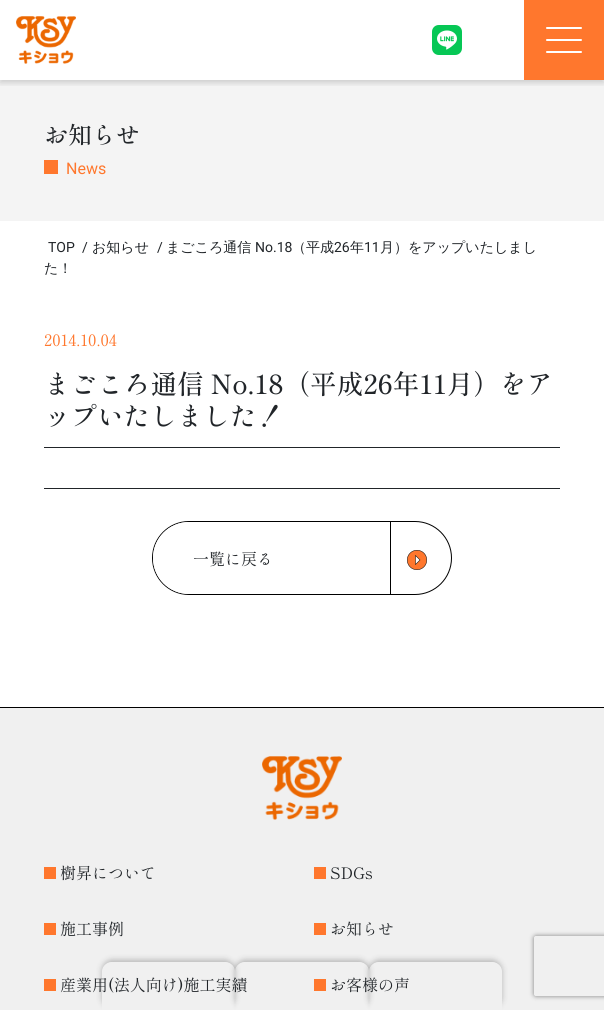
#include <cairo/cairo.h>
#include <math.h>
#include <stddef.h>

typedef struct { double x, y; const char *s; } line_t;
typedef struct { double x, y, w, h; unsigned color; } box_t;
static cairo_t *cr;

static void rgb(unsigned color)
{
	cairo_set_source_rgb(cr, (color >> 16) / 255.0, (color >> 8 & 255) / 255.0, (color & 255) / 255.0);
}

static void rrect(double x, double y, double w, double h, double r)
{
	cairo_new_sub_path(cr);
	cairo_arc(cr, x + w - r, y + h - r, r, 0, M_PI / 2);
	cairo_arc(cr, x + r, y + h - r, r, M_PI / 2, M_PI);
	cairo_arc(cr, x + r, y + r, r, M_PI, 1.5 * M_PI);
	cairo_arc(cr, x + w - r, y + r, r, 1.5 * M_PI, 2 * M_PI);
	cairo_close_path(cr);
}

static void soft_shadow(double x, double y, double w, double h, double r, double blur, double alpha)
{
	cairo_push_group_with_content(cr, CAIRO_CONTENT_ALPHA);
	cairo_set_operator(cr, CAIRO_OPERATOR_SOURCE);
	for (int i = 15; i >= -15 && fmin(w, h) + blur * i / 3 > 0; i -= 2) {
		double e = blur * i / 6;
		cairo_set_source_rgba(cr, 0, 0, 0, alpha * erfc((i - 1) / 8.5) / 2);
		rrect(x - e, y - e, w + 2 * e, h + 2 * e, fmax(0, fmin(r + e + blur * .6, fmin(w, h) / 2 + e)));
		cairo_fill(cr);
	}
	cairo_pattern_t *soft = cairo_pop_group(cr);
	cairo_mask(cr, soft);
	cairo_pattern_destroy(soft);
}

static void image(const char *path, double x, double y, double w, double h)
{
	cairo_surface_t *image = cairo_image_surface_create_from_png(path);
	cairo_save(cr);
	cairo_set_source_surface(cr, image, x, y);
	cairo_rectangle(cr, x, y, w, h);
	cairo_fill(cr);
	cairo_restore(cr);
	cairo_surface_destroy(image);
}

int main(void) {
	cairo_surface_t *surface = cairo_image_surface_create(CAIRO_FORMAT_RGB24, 604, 1010);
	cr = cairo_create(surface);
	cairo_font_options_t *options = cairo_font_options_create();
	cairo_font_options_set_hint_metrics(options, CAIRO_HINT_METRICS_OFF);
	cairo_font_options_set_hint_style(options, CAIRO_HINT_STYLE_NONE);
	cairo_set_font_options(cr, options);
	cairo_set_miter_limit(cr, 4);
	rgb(0xffffff);
	cairo_paint(cr);
	rgb(0xf4f4f4);
	cairo_rectangle(cr, 0, 80, 604, 141);
	cairo_fill(cr);
	cairo_save(cr);
	cairo_rectangle(cr, 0, 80, 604, 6);
	cairo_clip(cr);
	rgb(0x000000);
	soft_shadow(0, 3, 604, 80, 0, 3, 0.16);
	cairo_restore(cr);
	image("img/1.png", 16, 16, 60, 48);
	image("img/2.png", 432, 25, 30, 30);
	rgb(0xff772d);
	cairo_rectangle(cr, 524, 0, 80, 80);
	cairo_fill(cr);
	rgb(0xffffff);
	rrect(546, 27, 36, 2, 1);
	cairo_fill(cr);
	rrect(546, 39, 36, 2, 1);
	cairo_fill(cr);
	rrect(546, 51, 36, 2, 1);
	cairo_fill(cr);
	{
		static const box_t items[] = {
			{44, 160, 14, 14, 0xff772d},
			{44, 488, 516, 1, 0x212529},
			{44, 447, 516, 1, 0x212529},
		};
		for (size_t i = 0; i < sizeof items / sizeof *items; i++) {
			rgb(items[i].color);
			cairo_rectangle(cr, items[i].x, items[i].y, items[i].w, items[i].h);
			cairo_fill(cr);
		}
	}
	rrect(152.5, 521.5, 299, 73, 36.5);
	rgb(0x000000);
	cairo_set_line_width(cr, 1);
	cairo_stroke(cr);
	rgb(0xffffff);
	cairo_new_path(cr);
	cairo_move_to(cr, 189, 522);
	cairo_line_to(cr, 391, 522);
	cairo_line_to(cr, 391, 594);
	cairo_line_to(cr, 189, 594);
	cairo_curve_to(cr, 169, 594, 153, 578, 153, 558);
	cairo_curve_to(cr, 153, 538, 169, 522, 189, 522);
	cairo_close_path(cr);
	cairo_fill(cr);
	rgb(0x000000);
	cairo_rectangle(cr, 390, 522, 1, 72);
	cairo_fill(cr);
	image("img/3.png", 407, 550, 20, 20);
	rgb(0xf0f0f0);
	cairo_rectangle(cr, 0, 708, 604, 302);
	cairo_fill(cr);
	rgb(0x000000);
	cairo_rectangle(cr, 0, 707, 604, 1);
	cairo_fill(cr);
	image("img/4.png", 262, 756, 80, 64);
	{
		static const box_t items[] = {
			{44, 867, 12, 12, 0xff772d},
			{44, 923, 12, 12, 0xff772d},
			{44, 979, 12, 12, 0xff772d},
			{314, 867, 12, 12, 0xff772d},
			{314, 923, 12, 12, 0xff772d},
			{314, 979, 12, 12, 0xff772d},
		};
		for (size_t i = 0; i < sizeof items / sizeof *items; i++) {
			rgb(items[i].color);
			cairo_rectangle(cr, items[i].x, items[i].y, items[i].w, items[i].h);
			cairo_fill(cr);
		}
	}
	cairo_save(cr);
	cairo_set_fill_rule(cr, CAIRO_FILL_RULE_EVEN_ODD);
	cairo_new_path(cr);
	cairo_move_to(cr, 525, 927);
	cairo_line_to(cr, 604, 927);
	cairo_line_to(cr, 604, 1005);
	cairo_line_to(cr, 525, 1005);
	cairo_close_path(cr);
	cairo_move_to(cr, 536, 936);
	cairo_line_to(cr, 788, 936);
	cairo_curve_to(cr, 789, 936, 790, 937, 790, 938);
	cairo_line_to(cr, 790, 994);
	cairo_curve_to(cr, 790, 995, 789, 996, 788, 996);
	cairo_line_to(cr, 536, 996);
	cairo_curve_to(cr, 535, 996, 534, 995, 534, 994);
	cairo_line_to(cr, 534, 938);
	cairo_curve_to(cr, 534, 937, 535, 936, 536, 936);
	cairo_close_path(cr);
	cairo_clip(cr);
	rgb(0x808080);
	soft_shadow(534, 936, 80, 60, 2, 2.5, 1);
	cairo_restore(cr);
	cairo_save(cr);
	cairo_set_fill_rule(cr, CAIRO_FILL_RULE_EVEN_ODD);
	cairo_new_path(cr);
	cairo_move_to(cr, 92, 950);
	cairo_line_to(cr, 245, 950);
	cairo_line_to(cr, 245, 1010);
	cairo_line_to(cr, 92, 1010);
	cairo_close_path(cr);
	cairo_move_to(cr, 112, 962);
	cairo_line_to(cr, 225, 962);
	cairo_curve_to(cr, 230.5, 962, 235, 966.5, 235, 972);
	cairo_line_to(cr, 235, 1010);
	cairo_line_to(cr, 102, 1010);
	cairo_line_to(cr, 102, 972);
	cairo_curve_to(cr, 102, 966.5, 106.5, 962, 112, 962);
	cairo_close_path(cr);
	cairo_clip(cr);
	rgb(0x000000);
	soft_shadow(102, 960, 133, 48, 10, 3, 0.25);
	cairo_restore(cr);
	cairo_save(cr);
	cairo_set_fill_rule(cr, CAIRO_FILL_RULE_EVEN_ODD);
	cairo_new_path(cr);
	cairo_move_to(cr, 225, 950);
	cairo_line_to(cr, 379, 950);
	cairo_line_to(cr, 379, 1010);
	cairo_line_to(cr, 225, 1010);
	cairo_close_path(cr);
	cairo_move_to(cr, 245, 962);
	cairo_line_to(cr, 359, 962);
	cairo_curve_to(cr, 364.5, 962, 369, 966.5, 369, 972);
	cairo_line_to(cr, 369, 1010);
	cairo_line_to(cr, 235, 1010);
	cairo_line_to(cr, 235, 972);
	cairo_curve_to(cr, 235, 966.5, 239.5, 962, 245, 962);
	cairo_close_path(cr);
	cairo_clip(cr);
	rgb(0x000000);
	soft_shadow(235, 960, 134, 48, 10, 3, 0.25);
	cairo_restore(cr);
	cairo_save(cr);
	cairo_set_fill_rule(cr, CAIRO_FILL_RULE_EVEN_ODD);
	cairo_new_path(cr);
	cairo_move_to(cr, 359, 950);
	cairo_line_to(cr, 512, 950);
	cairo_line_to(cr, 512, 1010);
	cairo_line_to(cr, 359, 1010);
	cairo_close_path(cr);
	cairo_move_to(cr, 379, 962);
	cairo_line_to(cr, 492, 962);
	cairo_curve_to(cr, 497.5, 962, 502, 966.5, 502, 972);
	cairo_line_to(cr, 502, 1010);
	cairo_line_to(cr, 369, 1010);
	cairo_line_to(cr, 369, 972);
	cairo_curve_to(cr, 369, 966.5, 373.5, 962, 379, 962);
	cairo_close_path(cr);
	cairo_clip(cr);
	rgb(0x000000);
	soft_shadow(369, 960, 133, 48, 10, 3, 0.25);
	cairo_restore(cr);
	cairo_select_font_face(cr, "Shippori Mincho Medium", CAIRO_FONT_SLANT_NORMAL, CAIRO_FONT_WEIGHT_NORMAL);
	cairo_set_font_size(cr, 24);
	rgb(0x212529);
	cairo_move_to(cr, 44, 144);
	cairo_show_text(cr, "お知らせ");
	cairo_select_font_face(cr, "Roboto", CAIRO_FONT_SLANT_NORMAL, CAIRO_FONT_WEIGHT_NORMAL);
	cairo_set_font_size(cr, 16);
	rgb(0xff772d);
	cairo_move_to(cr, 66, 174);
	cairo_show_text(cr, "News");
	cairo_set_font_size(cr, 14);
	rgb(0x212529);
	cairo_move_to(cr, 48, 252);
	cairo_show_text(cr, "TOP");
	cairo_move_to(cr, 82, 252);
	cairo_show_text(cr, "/");
	cairo_select_font_face(cr, "WenQuanYi Zen Hei Medium", CAIRO_FONT_SLANT_NORMAL, CAIRO_FONT_WEIGHT_NORMAL);
	cairo_move_to(cr, 92, 252);
	cairo_show_text(cr, "お知らせ");
	cairo_select_font_face(cr, "Roboto", CAIRO_FONT_SLANT_NORMAL, CAIRO_FONT_WEIGHT_NORMAL);
	cairo_move_to(cr, 157, 252);
	cairo_show_text(cr, "/");
	cairo_select_font_face(cr, "WenQuanYi Zen Hei Medium", CAIRO_FONT_SLANT_NORMAL, CAIRO_FONT_WEIGHT_NORMAL);
	cairo_move_to(cr, 166, 252);
	cairo_show_text(cr, "まごころ通信");
	cairo_select_font_face(cr, "Roboto", CAIRO_FONT_SLANT_NORMAL, CAIRO_FONT_WEIGHT_NORMAL);
	cairo_move_to(cr, 255, 252);
	cairo_show_text(cr, "No.18");
	cairo_select_font_face(cr, "WenQuanYi Zen Hei Medium", CAIRO_FONT_SLANT_NORMAL, CAIRO_FONT_WEIGHT_NORMAL);
	cairo_move_to(cr, 292, 252);
	cairo_show_text(cr, "（平成");
	cairo_select_font_face(cr, "Roboto", CAIRO_FONT_SLANT_NORMAL, CAIRO_FONT_WEIGHT_NORMAL);
	cairo_move_to(cr, 334, 252);
	cairo_show_text(cr, "26");
	cairo_select_font_face(cr, "WenQuanYi Zen Hei Medium", CAIRO_FONT_SLANT_NORMAL, CAIRO_FONT_WEIGHT_NORMAL);
	cairo_move_to(cr, 350, 252);
	cairo_show_text(cr, "年");
	cairo_select_font_face(cr, "Roboto", CAIRO_FONT_SLANT_NORMAL, CAIRO_FONT_WEIGHT_NORMAL);
	cairo_move_to(cr, 364, 252);
	cairo_show_text(cr, "11");
	cairo_select_font_face(cr, "WenQuanYi Zen Hei Medium", CAIRO_FONT_SLANT_NORMAL, CAIRO_FONT_WEIGHT_NORMAL);
	cairo_move_to(cr, 380, 252);
	cairo_show_text(cr, "月）をアップいたしまし");
	cairo_move_to(cr, 44, 273);
	cairo_show_text(cr, "た！");
	cairo_select_font_face(cr, "Shippori Mincho", CAIRO_FONT_SLANT_NORMAL, CAIRO_FONT_WEIGHT_NORMAL);
	cairo_set_font_size(cr, 16);
	rgb(0xff772d);
	cairo_move_to(cr, 44, 346);
	cairo_show_text(cr, "2014.10.04");
	cairo_select_font_face(cr, "Shippori Mincho Medium", CAIRO_FONT_SLANT_NORMAL, CAIRO_FONT_WEIGHT_NORMAL);
	cairo_set_font_size(cr, 26.6);
	rgb(0x212529);
	cairo_move_to(cr, 44, 394);
	cairo_show_text(cr, "まごころ通信 No.18（平成26年11月）をア");
	cairo_move_to(cr, 44, 426);
	cairo_show_text(cr, "ップいたしました！");
	cairo_select_font_face(cr, "Shippori Mincho", CAIRO_FONT_SLANT_NORMAL, CAIRO_FONT_WEIGHT_NORMAL);
	cairo_set_font_size(cr, 16);
	{
		static const line_t items[] = {
			{193, 565, "一覧に戻る"},
			{60, 879, "樹昇について"},
			{60, 935, "施工事例"},
			{60, 991, "産業用(法人向け)施工実績"},
			{330, 879, "SDGs"},
			{330, 935, "お知らせ"},
			{330, 991, "お客様の声"},
		};
		for (size_t i = 0; i < sizeof items / sizeof *items; i++) {
			cairo_move_to(cr, items[i].x, items[i].y);
			cairo_show_text(cr, items[i].s);
		}
	}
	cairo_surface_write_to_png(surface, "page.png");
	cairo_font_options_destroy(options);
	cairo_destroy(cr);
	cairo_surface_destroy(surface);
	return 0;
}
